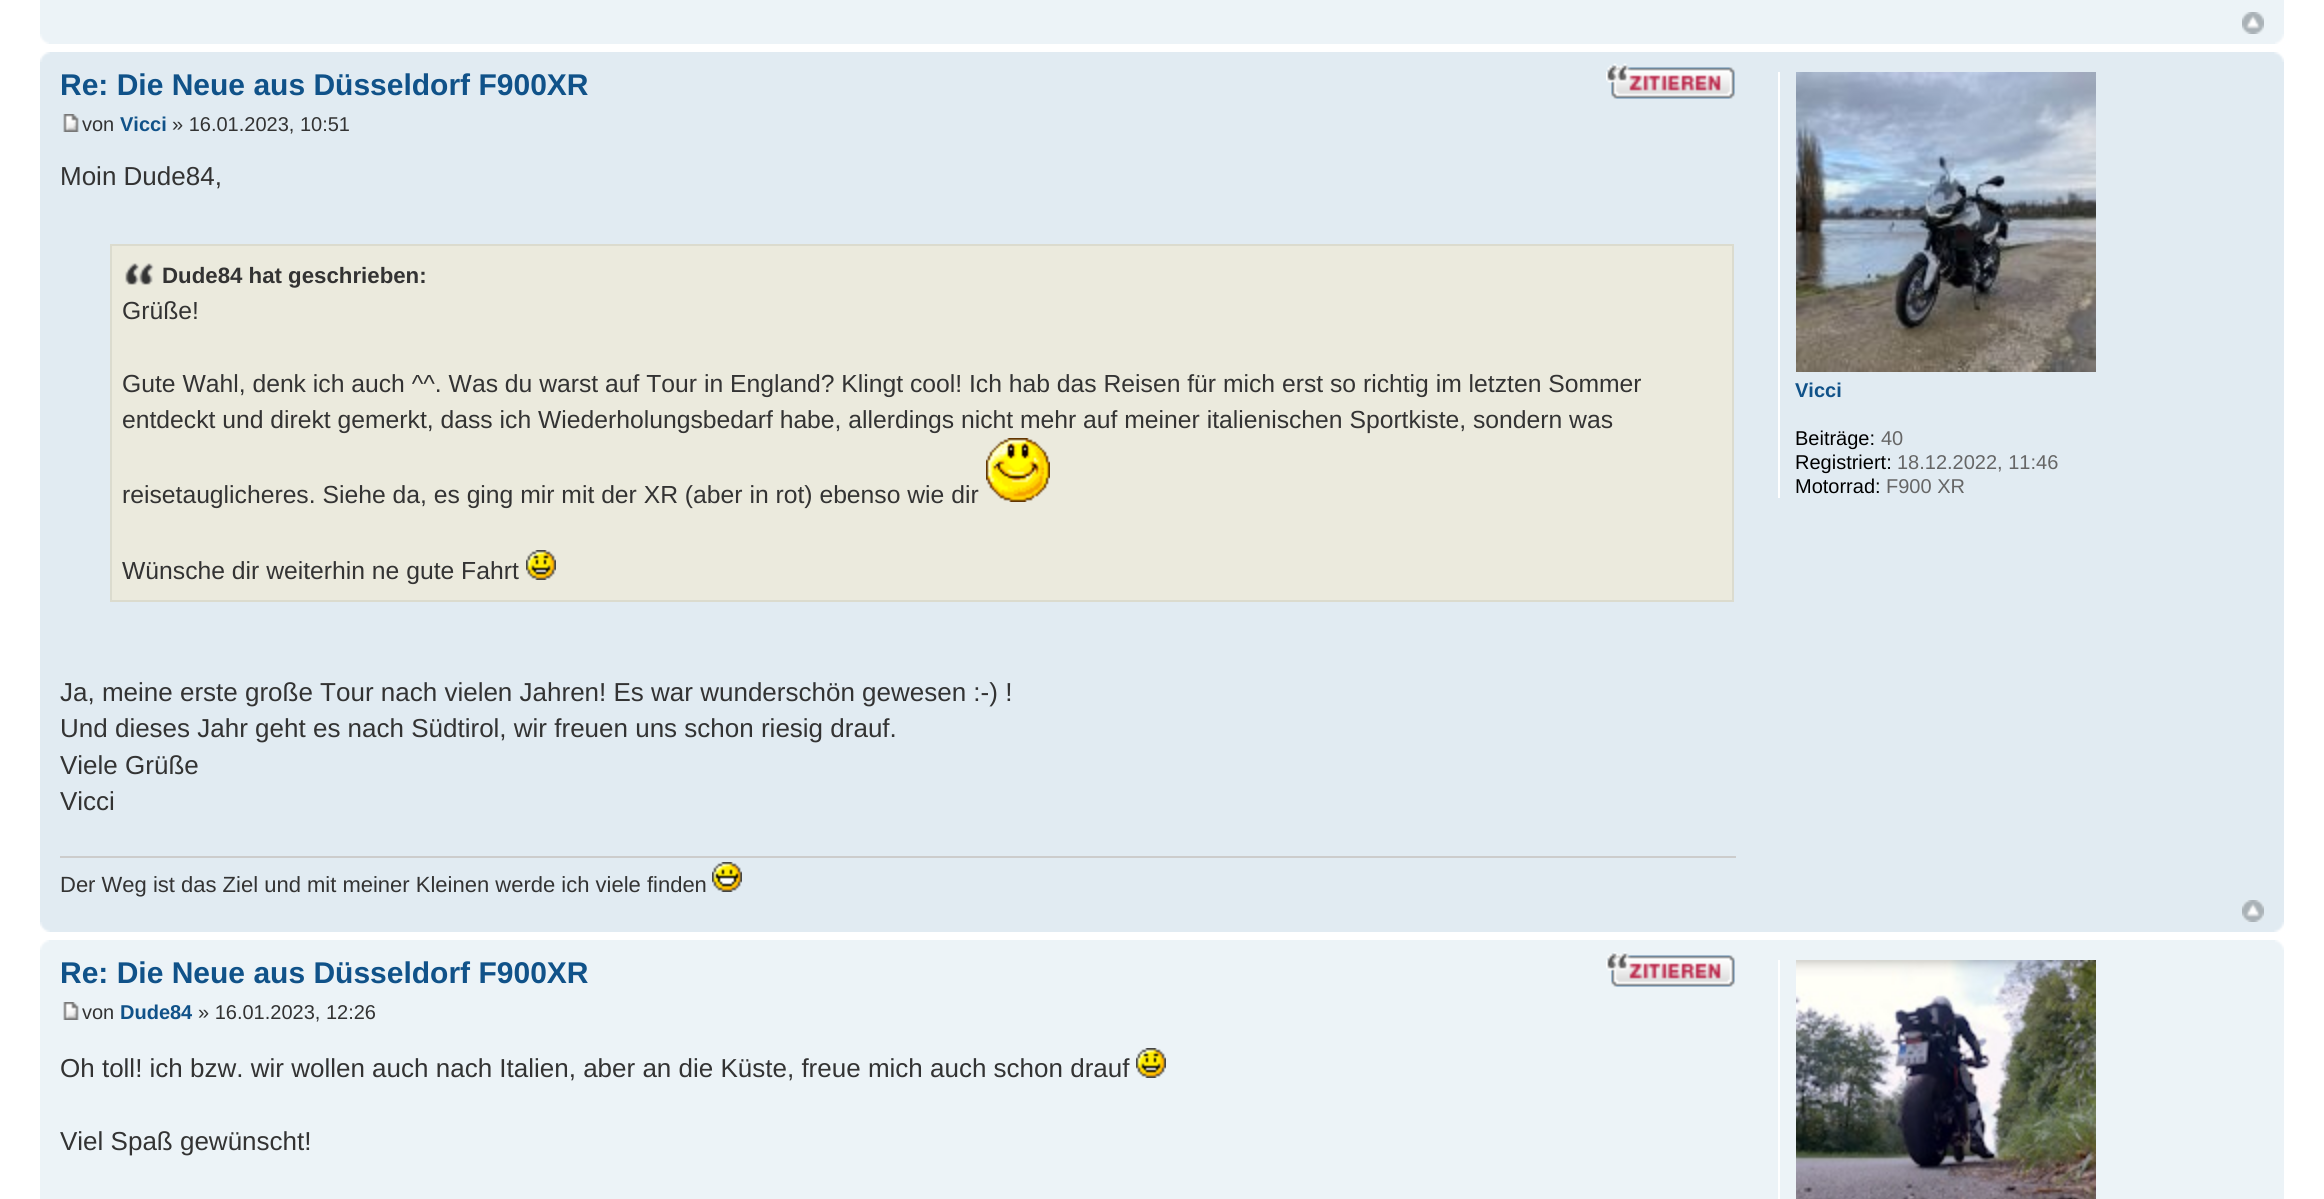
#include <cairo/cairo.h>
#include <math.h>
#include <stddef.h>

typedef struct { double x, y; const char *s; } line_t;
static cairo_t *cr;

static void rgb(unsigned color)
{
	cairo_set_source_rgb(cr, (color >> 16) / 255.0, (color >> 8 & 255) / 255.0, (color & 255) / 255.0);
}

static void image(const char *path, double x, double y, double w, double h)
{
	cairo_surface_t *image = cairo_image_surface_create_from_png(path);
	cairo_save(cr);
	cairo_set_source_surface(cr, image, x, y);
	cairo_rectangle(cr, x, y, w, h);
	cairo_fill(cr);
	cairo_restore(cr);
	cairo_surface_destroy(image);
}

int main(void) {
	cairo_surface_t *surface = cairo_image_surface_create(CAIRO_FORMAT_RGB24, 2324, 1199);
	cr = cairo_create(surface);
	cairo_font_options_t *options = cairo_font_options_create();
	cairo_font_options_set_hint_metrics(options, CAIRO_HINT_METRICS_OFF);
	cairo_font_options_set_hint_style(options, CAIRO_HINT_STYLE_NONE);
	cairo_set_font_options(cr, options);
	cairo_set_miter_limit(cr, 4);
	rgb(0xffffff);
	cairo_paint(cr);
	rgb(0xecf3f7);
	cairo_rectangle(cr, 40, 0, 2244, 44);
	cairo_fill(cr);
	image("img/1.png", 2242, 12, 22, 22);
	image("img/2.png", 40, 34, 9, 10);
	image("img/3.png", 2275, 34, 9, 10);
	rgb(0xe1ebf2);
	cairo_rectangle(cr, 40, 52, 2244, 880);
	cairo_fill(cr);
	image("img/4.png", 40, 52, 10, 10);
	image("img/5.png", 2274, 52, 10, 10);
	image("img/6.png", 1606, 63, 129, 36);
	image("img/7.png", 1606, 63, 129, 36);
	image("img/8.png", 63, 114, 16, 18);
	rgb(0xebeadd);
	cairo_rectangle(cr, 112, 246, 1620, 354);
	cairo_fill(cr);
	image("img/9.png", 125, 263, 29, 22);
	cairo_rectangle(cr, 111, 245, 1622, 356);
	rgb(0xdbdbce);
	cairo_stroke(cr);
	image("img/10.png", 986, 438, 64, 64);
	image("img/11.png", 526, 550, 30, 30);
	rgb(0xcccccc);
	cairo_rectangle(cr, 60, 856, 1676, 2);
	cairo_fill(cr);
	image("img/12.png", 712, 862, 30, 30);
	rgb(0xffffff);
	cairo_rectangle(cr, 1778, 72, 2, 426);
	cairo_fill(cr);
	image("img/13.png", 1796, 72, 300, 300);
	image("img/14.png", 2242, 900, 22, 22);
	image("img/15.png", 40, 922, 10, 10);
	image("img/16.png", 2274, 922, 10, 10);
	rgb(0xecf3f7);
	cairo_rectangle(cr, 40, 940, 2244, 259);
	cairo_fill(cr);
	image("img/17.png", 40, 940, 9, 10);
	image("img/18.png", 2275, 940, 9, 10);
	image("img/19.png", 1606, 952, 129, 35);
	image("img/20.png", 1607, 952, 128, 35);
	image("img/21.png", 63, 1002, 16, 18);
	image("img/22.png", 1136, 1048, 30, 30);
	rgb(0xffffff);
	cairo_rectangle(cr, 1778, 960, 2, 239);
	cairo_fill(cr);
	image("img/23.png", 1796, 960, 300, 239);
	cairo_select_font_face(cr, "Liberation Sans", CAIRO_FONT_SLANT_NORMAL, CAIRO_FONT_WEIGHT_BOLD);
	cairo_set_font_size(cr, 30);
	rgb(0x105289);
	cairo_move_to(cr, 60, 95);
	cairo_show_text(cr, "Re: Die Neue aus Düsseldorf F900XR");
	cairo_select_font_face(cr, "Liberation Sans", CAIRO_FONT_SLANT_NORMAL, CAIRO_FONT_WEIGHT_NORMAL);
	cairo_set_font_size(cr, 20);
	rgb(0x333333);
	cairo_move_to(cr, 82, 131);
	cairo_show_text(cr, "von");
	cairo_select_font_face(cr, "Liberation Sans", CAIRO_FONT_SLANT_NORMAL, CAIRO_FONT_WEIGHT_BOLD);
	rgb(0x105289);
	cairo_move_to(cr, 120, 131);
	cairo_show_text(cr, "Vicci");
	cairo_select_font_face(cr, "Liberation Sans", CAIRO_FONT_SLANT_NORMAL, CAIRO_FONT_WEIGHT_NORMAL);
	rgb(0x333333);
	cairo_move_to(cr, 172, 131);
	cairo_show_text(cr, "» 16.01.2023, 10:51");
	cairo_set_font_size(cr, 26);
	cairo_move_to(cr, 60, 185);
	cairo_show_text(cr, "Moin Dude84,");
	cairo_select_font_face(cr, "Liberation Sans", CAIRO_FONT_SLANT_NORMAL, CAIRO_FONT_WEIGHT_BOLD);
	cairo_set_font_size(cr, 22.25);
	cairo_move_to(cr, 162, 283);
	cairo_show_text(cr, "Dude84 hat geschrieben:");
	cairo_select_font_face(cr, "Liberation Sans", CAIRO_FONT_SLANT_NORMAL, CAIRO_FONT_WEIGHT_NORMAL);
	cairo_set_font_size(cr, 24.7);
	{
		static const line_t items[] = {
			{122, 319, "Grüße!"},
			{122, 392, "Gute Wahl, denk ich auch ^^. Was du warst auf Tour in England? Klingt cool! Ich hab das Reisen für mich erst so richtig im letzten Sommer"},
			{122, 428, "entdeckt und direkt gemerkt, dass ich Wiederholungsbedarf habe, allerdings nicht mehr auf meiner italienischen Sportkiste, sondern was"},
			{122, 503, "reisetauglicheres. Siehe da, es ging mir mit der XR (aber in rot) ebenso wie dir"},
			{122, 579, "Wünsche dir weiterhin ne gute Fahrt"},
		};
		for (size_t i = 0; i < sizeof items / sizeof *items; i++) {
			cairo_move_to(cr, items[i].x, items[i].y);
			cairo_show_text(cr, items[i].s);
		}
	}
	cairo_set_font_size(cr, 26);
	{
		static const line_t items[] = {
			{60, 701, "Ja, meine erste große Tour nach vielen Jahren! Es war wunderschön gewesen :-) !"},
			{60, 737, "Und dieses Jahr geht es nach Südtirol, wir freuen uns schon riesig drauf."},
			{60, 774, "Viele Grüße"},
			{60, 810, "Vicci"},
		};
		for (size_t i = 0; i < sizeof items / sizeof *items; i++) {
			cairo_move_to(cr, items[i].x, items[i].y);
			cairo_show_text(cr, items[i].s);
		}
	}
	cairo_set_font_size(cr, 22);
	cairo_move_to(cr, 60, 892);
	cairo_show_text(cr, "Der Weg ist das Ziel und mit meiner Kleinen werde ich viele finden");
	cairo_select_font_face(cr, "Liberation Sans", CAIRO_FONT_SLANT_NORMAL, CAIRO_FONT_WEIGHT_BOLD);
	cairo_set_font_size(cr, 20);
	rgb(0x105289);
	cairo_move_to(cr, 1795, 397);
	cairo_show_text(cr, "Vicci");
	cairo_select_font_face(cr, "Liberation Sans", CAIRO_FONT_SLANT_NORMAL, CAIRO_FONT_WEIGHT_NORMAL);
	rgb(0x000000);
	cairo_move_to(cr, 1795, 445);
	cairo_show_text(cr, "Beiträge:");
	rgb(0x666666);
	cairo_move_to(cr, 1881, 445);
	cairo_show_text(cr, "40");
	rgb(0x000000);
	cairo_move_to(cr, 1795, 469);
	cairo_show_text(cr, "Registriert:");
	rgb(0x666666);
	cairo_move_to(cr, 1897, 469);
	cairo_show_text(cr, "18.12.2022, 11:46");
	rgb(0x000000);
	cairo_move_to(cr, 1795, 493);
	cairo_show_text(cr, "Motorrad:");
	rgb(0x666666);
	cairo_move_to(cr, 1886, 493);
	cairo_show_text(cr, "F900 XR");
	cairo_select_font_face(cr, "Liberation Sans", CAIRO_FONT_SLANT_NORMAL, CAIRO_FONT_WEIGHT_BOLD);
	cairo_set_font_size(cr, 30);
	rgb(0x105289);
	cairo_move_to(cr, 60, 983);
	cairo_show_text(cr, "Re: Die Neue aus Düsseldorf F900XR");
	cairo_select_font_face(cr, "Liberation Sans", CAIRO_FONT_SLANT_NORMAL, CAIRO_FONT_WEIGHT_NORMAL);
	cairo_set_font_size(cr, 20);
	rgb(0x333333);
	cairo_move_to(cr, 82, 1019);
	cairo_show_text(cr, "von");
	cairo_select_font_face(cr, "Liberation Sans", CAIRO_FONT_SLANT_NORMAL, CAIRO_FONT_WEIGHT_BOLD);
	rgb(0x105289);
	cairo_move_to(cr, 120, 1019);
	cairo_show_text(cr, "Dude84");
	cairo_select_font_face(cr, "Liberation Sans", CAIRO_FONT_SLANT_NORMAL, CAIRO_FONT_WEIGHT_NORMAL);
	rgb(0x333333);
	cairo_move_to(cr, 198, 1019);
	cairo_show_text(cr, "» 16.01.2023, 12:26");
	cairo_set_font_size(cr, 26);
	cairo_move_to(cr, 60, 1077);
	cairo_show_text(cr, "Oh toll! ich bzw. wir wollen auch nach Italien, aber an die Küste, freue mich auch schon drauf");
	cairo_move_to(cr, 60, 1150);
	cairo_show_text(cr, "Viel Spaß gewünscht!");
	cairo_surface_write_to_png(surface, "page.png");
	cairo_font_options_destroy(options);
	cairo_destroy(cr);
	cairo_surface_destroy(surface);
	return 0;
}
